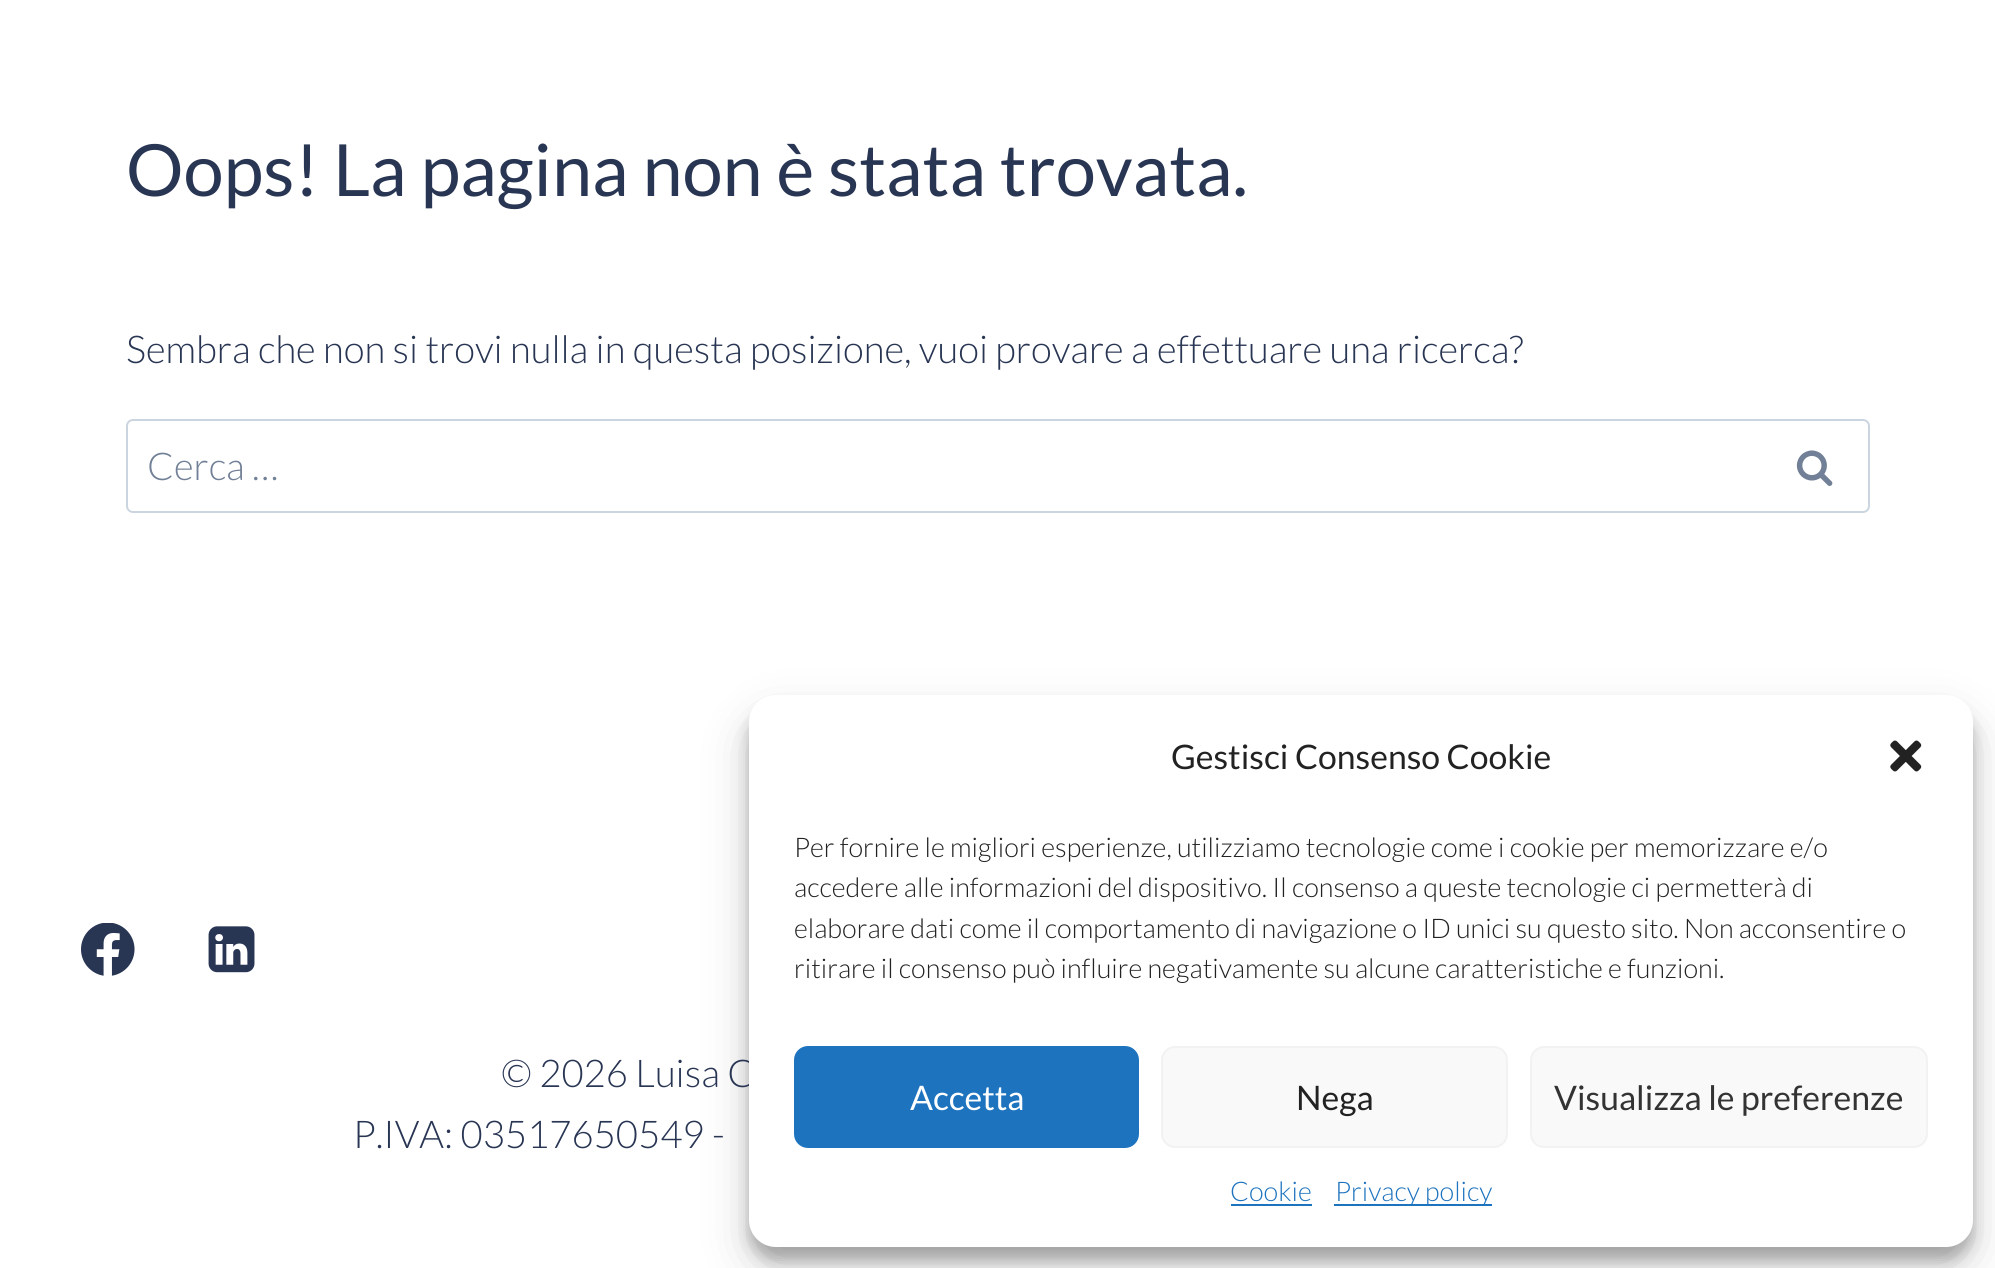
#include <cairo/cairo.h>
#include <math.h>
#include <stddef.h>

typedef struct { double x, y; const char *s; } line_t;
static cairo_t *cr;

static void rgb(unsigned color)
{
	cairo_set_source_rgb(cr, (color >> 16) / 255.0, (color >> 8 & 255) / 255.0, (color & 255) / 255.0);
}

static void rrect(double x, double y, double w, double h, double r)
{
	cairo_new_sub_path(cr);
	cairo_arc(cr, x + w - r, y + h - r, r, 0, M_PI / 2);
	cairo_arc(cr, x + r, y + h - r, r, M_PI / 2, M_PI);
	cairo_arc(cr, x + r, y + r, r, M_PI, 1.5 * M_PI);
	cairo_arc(cr, x + w - r, y + r, r, 1.5 * M_PI, 2 * M_PI);
	cairo_close_path(cr);
}

static void soft_shadow(double x, double y, double w, double h, double r, double blur, double alpha)
{
	cairo_push_group_with_content(cr, CAIRO_CONTENT_ALPHA);
	cairo_set_operator(cr, CAIRO_OPERATOR_SOURCE);
	for (int i = 15; i >= -15 && fmin(w, h) + blur * i / 3 > 0; i -= 2) {
		double e = blur * i / 6;
		cairo_set_source_rgba(cr, 0, 0, 0, alpha * erfc((i - 1) / 8.5) / 2);
		rrect(x - e, y - e, w + 2 * e, h + 2 * e, fmax(0, fmin(r + e + blur * .6, fmin(w, h) / 2 + e)));
		cairo_fill(cr);
	}
	cairo_pattern_t *soft = cairo_pop_group(cr);
	cairo_mask(cr, soft);
	cairo_pattern_destroy(soft);
}

static void image(const char *path, double x, double y, double w, double h)
{
	cairo_surface_t *image = cairo_image_surface_create_from_png(path);
	cairo_save(cr);
	cairo_set_source_surface(cr, image, x, y);
	cairo_rectangle(cr, x, y, w, h);
	cairo_fill(cr);
	cairo_restore(cr);
	cairo_surface_destroy(image);
}

int main(void) {
	cairo_surface_t *surface = cairo_image_surface_create(CAIRO_FORMAT_RGB24, 1995, 1268);
	cr = cairo_create(surface);
	cairo_font_options_t *options = cairo_font_options_create();
	cairo_font_options_set_hint_metrics(options, CAIRO_HINT_METRICS_OFF);
	cairo_font_options_set_hint_style(options, CAIRO_HINT_STYLE_NONE);
	cairo_set_font_options(cr, options);
	cairo_set_miter_limit(cr, 4);
	rgb(0xffffff);
	cairo_paint(cr);
	rrect(127, 420, 1742, 92, 6);
	rgb(0xcbd5e0);
	cairo_stroke(cr);
	image("img/1.png", 1796, 450, 37, 36);
	image("img/2.png", 81, 923, 54, 53);
	image("img/3.png", 208, 926, 47, 47);
	rgb(0x000000);
	soft_shadow(749, 709, 1224, 551, 27, 7, 0.23);
	soft_shadow(749, 718, 1224, 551, 27, 22.5, 0.19);
	cairo_select_font_face(cr, "Lato", CAIRO_FONT_SLANT_NORMAL, CAIRO_FONT_WEIGHT_NORMAL);
	cairo_set_font_size(cr, 72);
	rgb(0x283553);
	cairo_move_to(cr, 126, 196);
	cairo_show_text(cr, "Oops! La pagina non è stata trovata.");
	cairo_select_font_face(cr, "Lato Light", CAIRO_FONT_SLANT_NORMAL, CAIRO_FONT_WEIGHT_NORMAL);
	cairo_set_font_size(cr, 38.25);
	cairo_move_to(cr, 126, 363);
	cairo_show_text(cr, "Sembra che non si trovi nulla in questa posizione, vuoi provare a effettuare una ricerca?");
	rgb(0x718096);
	cairo_move_to(cr, 147, 480);
	cairo_show_text(cr, "Cerca …");
	rgb(0x283553);
	cairo_move_to(cr, 501, 1087);
	cairo_show_text(cr, "© 2026 Luisa C");
	cairo_move_to(cr, 353, 1148);
	cairo_show_text(cr, "P.IVA: 03517650549 -");
	rgb(0xffffff);
	rrect(749, 695, 1224, 552, 27);
	cairo_fill(cr);
	cairo_select_font_face(cr, "Lato", CAIRO_FONT_SLANT_NORMAL, CAIRO_FONT_WEIGHT_NORMAL);
	cairo_set_font_size(cr, 33.75);
	rgb(0x222222);
	cairo_move_to(cr, 1171, 769);
	cairo_show_text(cr, "Gestisci Consenso Cookie");
	image("img/4.png", 1890, 740, 32, 32);
	cairo_select_font_face(cr, "Lato Light", CAIRO_FONT_SLANT_NORMAL, CAIRO_FONT_WEIGHT_NORMAL);
	cairo_set_font_size(cr, 27);
	{
		static const line_t items[] = {
			{794, 857, "Per fornire le migliori esperienze, utilizziamo tecnologie come i cookie per memorizzare e/o"},
			{794, 897, "accedere alle informazioni del dispositivo. Il consenso a queste tecnologie ci permetterà di"},
			{794, 938, "elaborare dati come il comportamento di navigazione o ID unici su questo sito. Non acconsentire o"},
			{794, 978, "ritirare il consenso può influire negativamente su alcune caratteristiche e funzioni."},
		};
		for (size_t i = 0; i < sizeof items / sizeof *items; i++) {
			cairo_move_to(cr, items[i].x, items[i].y);
			cairo_show_text(cr, items[i].s);
		}
	}
	rgb(0x1e73be);
	rrect(795, 1047, 343, 100, 13);
	cairo_fill_preserve(cr);
	cairo_stroke(cr);
	cairo_select_font_face(cr, "Lato", CAIRO_FONT_SLANT_NORMAL, CAIRO_FONT_WEIGHT_NORMAL);
	cairo_set_font_size(cr, 33.75);
	rgb(0xffffff);
	cairo_move_to(cr, 910, 1110);
	cairo_show_text(cr, "Accetta");
	rgb(0xf9f9f9);
	rrect(1162, 1047, 345, 100, 13);
	cairo_fill_preserve(cr);
	rgb(0xf2f2f2);
	cairo_stroke(cr);
	rgb(0x222222);
	cairo_move_to(cr, 1296, 1110);
	cairo_show_text(cr, "Nega");
	rgb(0xf9f9f9);
	rrect(1531, 1047, 396, 100, 13);
	cairo_fill_preserve(cr);
	rgb(0xf2f2f2);
	cairo_stroke(cr);
	rgb(0x333333);
	cairo_move_to(cr, 1554, 1110);
	cairo_show_text(cr, "Visualizza le preferenze");
	cairo_select_font_face(cr, "Lato Light", CAIRO_FONT_SLANT_NORMAL, CAIRO_FONT_WEIGHT_NORMAL);
	cairo_set_font_size(cr, 27);
	rgb(0x1e73be);
	cairo_move_to(cr, 1230, 1201);
	cairo_show_text(cr, "Cookie");
	cairo_rectangle(cr, 1231, 1204, 81, 2);
	cairo_fill(cr);
	cairo_rectangle(cr, 1334, 1204, 158, 2);
	cairo_fill(cr);
	cairo_move_to(cr, 1335, 1201);
	cairo_show_text(cr, "Privacy policy");
	cairo_surface_write_to_png(surface, "page.png");
	cairo_font_options_destroy(options);
	cairo_destroy(cr);
	cairo_surface_destroy(surface);
	return 0;
}
